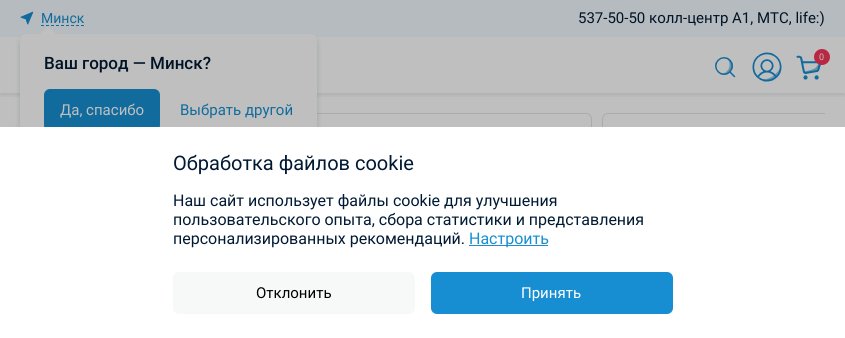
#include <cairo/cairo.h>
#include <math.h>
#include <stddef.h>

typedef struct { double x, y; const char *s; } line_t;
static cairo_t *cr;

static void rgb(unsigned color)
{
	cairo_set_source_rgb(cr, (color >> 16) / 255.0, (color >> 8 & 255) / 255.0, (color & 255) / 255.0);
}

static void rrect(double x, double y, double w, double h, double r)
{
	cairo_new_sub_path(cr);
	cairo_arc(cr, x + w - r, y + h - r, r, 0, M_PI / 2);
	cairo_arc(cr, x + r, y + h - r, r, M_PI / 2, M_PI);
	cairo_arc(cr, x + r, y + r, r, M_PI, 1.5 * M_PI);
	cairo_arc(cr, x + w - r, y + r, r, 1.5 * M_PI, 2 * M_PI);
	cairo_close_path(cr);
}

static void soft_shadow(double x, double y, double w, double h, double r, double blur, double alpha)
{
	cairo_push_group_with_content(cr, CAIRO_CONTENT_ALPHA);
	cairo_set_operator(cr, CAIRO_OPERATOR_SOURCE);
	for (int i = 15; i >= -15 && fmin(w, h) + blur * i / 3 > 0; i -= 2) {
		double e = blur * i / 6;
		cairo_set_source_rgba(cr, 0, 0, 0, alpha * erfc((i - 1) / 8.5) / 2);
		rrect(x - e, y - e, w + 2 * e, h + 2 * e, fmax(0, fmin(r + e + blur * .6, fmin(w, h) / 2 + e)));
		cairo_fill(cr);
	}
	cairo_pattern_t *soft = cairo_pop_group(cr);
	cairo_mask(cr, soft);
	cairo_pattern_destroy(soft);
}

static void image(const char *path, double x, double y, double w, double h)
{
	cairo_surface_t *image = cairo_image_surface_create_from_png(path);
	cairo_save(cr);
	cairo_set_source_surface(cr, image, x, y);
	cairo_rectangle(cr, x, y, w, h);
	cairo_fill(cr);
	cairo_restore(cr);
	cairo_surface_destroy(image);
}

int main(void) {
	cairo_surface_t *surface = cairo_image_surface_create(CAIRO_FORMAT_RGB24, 845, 338);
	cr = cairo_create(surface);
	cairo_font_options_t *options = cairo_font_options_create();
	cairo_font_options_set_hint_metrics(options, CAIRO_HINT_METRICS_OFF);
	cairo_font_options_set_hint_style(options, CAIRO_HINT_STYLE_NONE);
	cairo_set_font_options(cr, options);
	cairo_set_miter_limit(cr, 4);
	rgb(0xbfbfbf);
	cairo_paint(cr);
	cairo_save(cr);
	cairo_rectangle(cr, 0, 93, 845, 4);
	cairo_clip(cr);
	rgb(0x011426);
	soft_shadow(0, 40, 845, 56, 0, 2, 0.08);
	cairo_restore(cr);
	rgb(0xb5bbbe);
	cairo_rectangle(cr, 0, 0, 845, 37);
	cairo_fill(cr);
	image("img/1.png", 20, 11, 14, 14);
	cairo_new_path(cr);
	cairo_move_to(cr, 41, 25.5);
	cairo_line_to(cr, 84, 25.5);
	rgb(0x116b9d);
	cairo_set_line_width(cr, 1);
	cairo_set_dash(cr, (double[]){3, 2}, 2, 0);
	cairo_stroke(cr);
	rrect(228.5, 113.5, 363, 43, 5.5);
	rgb(0xa9abad);
	cairo_set_dash(cr, NULL, 0, 0);
	cairo_stroke(cr);
	rgb(0x011426);
	soft_shadow(20, 38, 297, 121, 6, 3, 0.16);
	rgb(0xbfbfbf);
	rrect(20, 34, 297, 121, 6);
	cairo_fill(cr);
	cairo_new_path(cr);
	cairo_move_to(cr, 58, 36);
	cairo_line_to(cr, 38, 36);
	cairo_line_to(cr, 48, 26);
	cairo_close_path(cr);
	cairo_fill(cr);
	rgb(0x116b9d);
	rrect(44, 89, 116, 42, 6);
	cairo_fill(cr);
	image("img/2.png", 715, 57, 21, 21);
	image("img/3.png", 752, 52, 30, 30);
	image("img/4.png", 796, 55, 25, 25);
	rgb(0xb92842);
	cairo_arc(cr, 822, 57, 8, 0, 2 * M_PI);
	cairo_fill(cr);
	cairo_save(cr);
	cairo_rectangle(cr, 20, 113, 805, 54);
	cairo_clip(cr);
	rrect(602.5, 113.5, 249, 43, 5.5);
	rgb(0xa9abad);
	cairo_stroke(cr);
	cairo_restore(cr);
	rgb(0xffffff);
	cairo_rectangle(cr, 0, 127, 845, 211);
	cairo_fill(cr);
	rgb(0x178ed1);
	cairo_rectangle(cr, 469, 245, 79, 1);
	cairo_fill(cr);
	rgb(0xf7f8f8);
	rrect(173, 272, 242, 42, 6);
	cairo_fill(cr);
	rgb(0x178ed1);
	rrect(431, 272, 242, 42, 6);
	cairo_fill(cr);
	cairo_select_font_face(cr, "Roboto", CAIRO_FONT_SLANT_NORMAL, CAIRO_FONT_WEIGHT_NORMAL);
	cairo_set_font_size(cr, 14);
	rgb(0x116b9d);
	cairo_move_to(cr, 41, 23);
	cairo_show_text(cr, "Минск");
	cairo_select_font_face(cr, "Roboto Medium", CAIRO_FONT_SLANT_NORMAL, CAIRO_FONT_WEIGHT_NORMAL);
	cairo_set_font_size(cr, 17);
	rgb(0x011426);
	cairo_move_to(cr, 44, 69);
	cairo_show_text(cr, "Ваш город — Минск?");
	cairo_select_font_face(cr, "Roboto", CAIRO_FONT_SLANT_NORMAL, CAIRO_FONT_WEIGHT_NORMAL);
	cairo_set_font_size(cr, 15);
	rgb(0xbfbfbf);
	cairo_move_to(cr, 60, 115);
	cairo_show_text(cr, "Да, спасибо");
	rgb(0x116b9d);
	cairo_move_to(cr, 180, 115);
	cairo_show_text(cr, "Выбрать другой");
	rgb(0x011426);
	cairo_move_to(cr, 578, 23);
	cairo_show_text(cr, "537-50-50 колл-центр A1, МТС, life:)");
	cairo_set_font_size(cr, 9);
	rgb(0xbfbfbf);
	cairo_move_to(cr, 819, 60);
	cairo_show_text(cr, "0");
	cairo_set_font_size(cr, 20);
	rgb(0x011a33);
	cairo_move_to(cr, 173, 170);
	cairo_show_text(cr, "Обработка файлов cookie");
	cairo_set_font_size(cr, 16);
	{
		static const line_t items[] = {
			{173, 206, "Наш сайт использует файлы cookie для улучшения"},
			{173, 225, "пользовательского опыта, сбора статистики и представления"},
			{173, 244, "персонализированных рекомендаций."},
		};
		for (size_t i = 0; i < sizeof items / sizeof *items; i++) {
			cairo_move_to(cr, items[i].x, items[i].y);
			cairo_show_text(cr, items[i].s);
		}
	}
	rgb(0x178ed1);
	cairo_move_to(cr, 469, 244);
	cairo_show_text(cr, "Настроить");
	cairo_set_font_size(cr, 15);
	rgb(0x000000);
	cairo_move_to(cr, 256, 298);
	cairo_show_text(cr, "Отклонить");
	rgb(0xffffff);
	cairo_move_to(cr, 521, 298);
	cairo_show_text(cr, "Принять");
	cairo_surface_write_to_png(surface, "page.png");
	cairo_font_options_destroy(options);
	cairo_destroy(cr);
	cairo_surface_destroy(surface);
	return 0;
}
